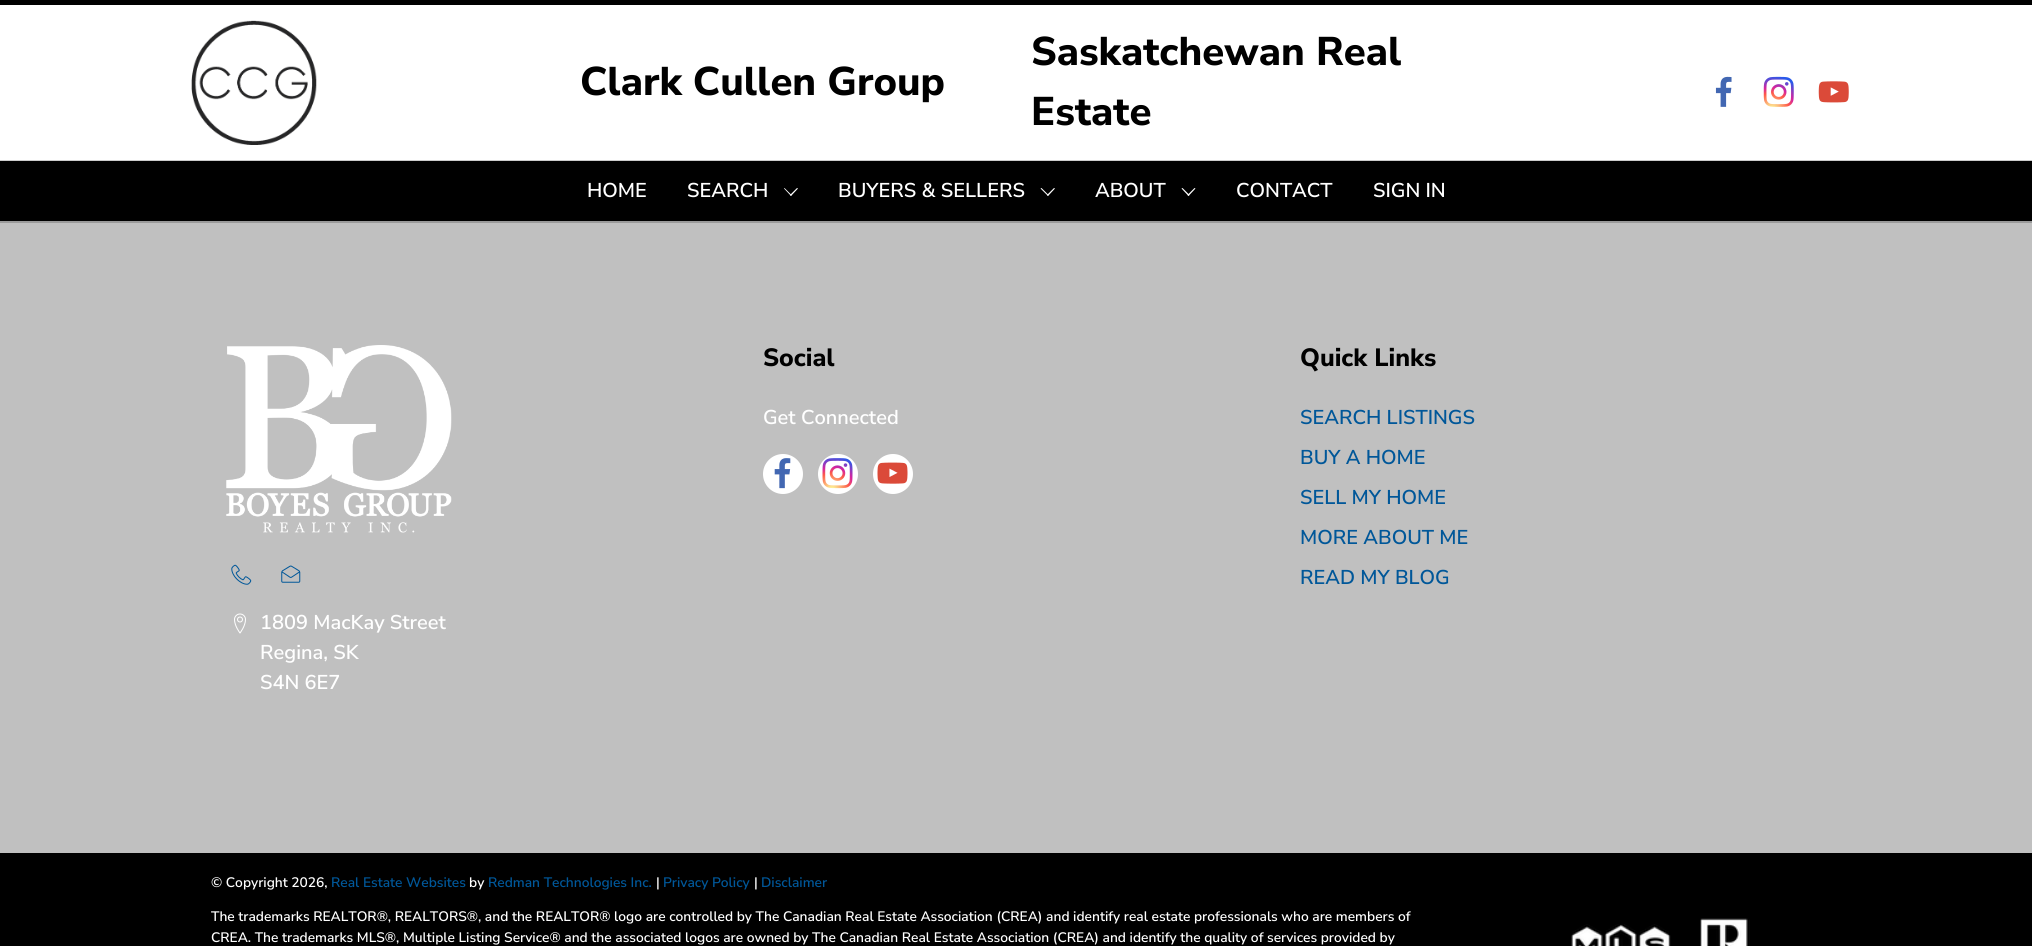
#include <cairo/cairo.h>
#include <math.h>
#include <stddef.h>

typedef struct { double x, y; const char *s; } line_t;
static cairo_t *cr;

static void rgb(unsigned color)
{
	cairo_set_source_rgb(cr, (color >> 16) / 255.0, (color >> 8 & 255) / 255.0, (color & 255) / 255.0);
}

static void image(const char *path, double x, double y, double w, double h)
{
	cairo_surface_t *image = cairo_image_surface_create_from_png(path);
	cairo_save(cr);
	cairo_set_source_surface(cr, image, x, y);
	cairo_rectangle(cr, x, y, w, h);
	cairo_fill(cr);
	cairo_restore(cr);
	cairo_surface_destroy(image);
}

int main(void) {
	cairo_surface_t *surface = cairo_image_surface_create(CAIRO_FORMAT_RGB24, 2032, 946);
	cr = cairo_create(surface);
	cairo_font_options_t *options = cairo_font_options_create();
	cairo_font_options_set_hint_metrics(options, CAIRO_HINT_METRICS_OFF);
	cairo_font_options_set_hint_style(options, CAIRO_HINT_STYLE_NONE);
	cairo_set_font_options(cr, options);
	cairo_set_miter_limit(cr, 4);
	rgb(0x000000);
	cairo_paint(cr);
	rgb(0x9a9a9a);
	cairo_new_path(cr);
	cairo_move_to(cr, 0, 221);
	cairo_line_to(cr, 0, 223);
	cairo_line_to(cr, 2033, 223);
	cairo_line_to(cr, 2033, 1);
	cairo_line_to(cr, 2032, 1);
	cairo_line_to(cr, 2032, 221);
	cairo_close_path(cr);
	cairo_fill(cr);
	rgb(0xffffff);
	cairo_rectangle(cr, 0, 5, 2032, 155);
	cairo_fill(cr);
	rgb(0xcccccc);
	cairo_rectangle(cr, 0, 160, 2032, 1);
	cairo_fill(cr);
	image("img/1.png", 191, 20, 126, 125);
	image("img/2.png", 1715, 76, 17, 31);
	image("img/3.png", 1763, 76, 31, 31);
	image("img/4.png", 1818, 81, 31, 22);
	rgb(0xffffff);
	cairo_new_path(cr);
	cairo_move_to(cr, 790, 195);
	cairo_line_to(cr, 797, 188);
	cairo_line_to(cr, 798, 188.5);
	cairo_line_to(cr, 791, 196);
	cairo_close_path(cr);
	cairo_fill(cr);
	cairo_new_path(cr);
	cairo_move_to(cr, 784, 188.5);
	cairo_line_to(cr, 784.5, 188);
	cairo_line_to(cr, 791.5, 195);
	cairo_line_to(cr, 791, 196);
	cairo_close_path(cr);
	cairo_fill(cr);
	cairo_new_path(cr);
	cairo_move_to(cr, 1047, 195);
	cairo_line_to(cr, 1054, 188);
	cairo_line_to(cr, 1055, 188.5);
	cairo_line_to(cr, 1048, 196);
	cairo_close_path(cr);
	cairo_fill(cr);
	cairo_new_path(cr);
	cairo_move_to(cr, 1040.5, 188.5);
	cairo_line_to(cr, 1041.5, 188);
	cairo_line_to(cr, 1048.5, 195);
	cairo_line_to(cr, 1048, 196);
	cairo_close_path(cr);
	cairo_fill(cr);
	cairo_new_path(cr);
	cairo_move_to(cr, 1187.5, 195);
	cairo_line_to(cr, 1194.5, 188);
	cairo_line_to(cr, 1195.5, 188.5);
	cairo_line_to(cr, 1188.5, 196);
	cairo_close_path(cr);
	cairo_fill(cr);
	cairo_new_path(cr);
	cairo_move_to(cr, 1181.5, 188.5);
	cairo_line_to(cr, 1182.5, 188);
	cairo_line_to(cr, 1189.5, 195);
	cairo_line_to(cr, 1188.5, 196);
	cairo_close_path(cr);
	cairo_fill(cr);
	rgb(0xc0c0c0);
	cairo_rectangle(cr, 0, 223, 2032, 630);
	cairo_fill(cr);
	rgb(0xffffff);
	cairo_arc(cr, 783, 474, 20, 0, 2 * M_PI);
	cairo_fill(cr);
	image("img/5.png", 774, 458, 17, 31);
	cairo_arc(cr, 838, 474, 20, 0, 2 * M_PI);
	cairo_fill(cr);
	image("img/6.png", 822, 458, 31, 31);
	cairo_arc(cr, 893, 474, 20, 0, 2 * M_PI);
	cairo_fill(cr);
	image("img/7.png", 877, 462, 31, 22);
	image("img/8.png", 226, 345, 226, 188);
	image("img/9.png", 231, 564, 21, 21);
	image("img/10.png", 281, 565, 20, 18);
	image("img/11.png", 234, 613, 12, 21);
	image("img/12.png", 1571, 924, 100, 22);
	image("img/13.png", 1700, 918, 50, 28);
	cairo_select_font_face(cr, "Nunito Sans ExtraBold", CAIRO_FONT_SLANT_NORMAL, CAIRO_FONT_WEIGHT_NORMAL);
	cairo_set_font_size(cr, 40);
	rgb(0x000000);
	{
		static const line_t items[] = {
			{580, 95, "Clark Cullen Group"},
			{1031, 65, "Saskatchewan Real"},
			{1031, 125, "Estate"},
		};
		for (size_t i = 0; i < sizeof items / sizeof *items; i++) {
			cairo_move_to(cr, items[i].x, items[i].y);
			cairo_show_text(cr, items[i].s);
		}
	}
	cairo_select_font_face(cr, "Nunito Sans SemiBold", CAIRO_FONT_SLANT_NORMAL, CAIRO_FONT_WEIGHT_NORMAL);
	cairo_set_font_size(cr, 20);
	rgb(0xffffff);
	{
		static const line_t items[] = {
			{587, 197, "HOME"},
			{687, 197, "SEARCH"},
			{838, 197, "BUYERS & SELLERS"},
			{1095, 197, "ABOUT"},
			{1236, 197, "CONTACT"},
			{1373, 197, "SIGN IN"},
		};
		for (size_t i = 0; i < sizeof items / sizeof *items; i++) {
			cairo_move_to(cr, items[i].x, items[i].y);
			cairo_show_text(cr, items[i].s);
		}
	}
	cairo_select_font_face(cr, "Nunito Sans ExtraBold", CAIRO_FONT_SLANT_NORMAL, CAIRO_FONT_WEIGHT_NORMAL);
	cairo_set_font_size(cr, 25);
	rgb(0x000000);
	cairo_move_to(cr, 763, 366);
	cairo_show_text(cr, "Social");
	cairo_select_font_face(cr, "Nunito Sans SemiBold", CAIRO_FONT_SLANT_NORMAL, CAIRO_FONT_WEIGHT_NORMAL);
	cairo_set_font_size(cr, 20);
	rgb(0xffffff);
	cairo_move_to(cr, 763, 424);
	cairo_show_text(cr, "Get Connected");
	cairo_select_font_face(cr, "Nunito Sans ExtraBold", CAIRO_FONT_SLANT_NORMAL, CAIRO_FONT_WEIGHT_NORMAL);
	cairo_set_font_size(cr, 25);
	rgb(0x000000);
	cairo_move_to(cr, 1300, 366);
	cairo_show_text(cr, "Quick Links");
	cairo_select_font_face(cr, "Nunito Sans SemiBold", CAIRO_FONT_SLANT_NORMAL, CAIRO_FONT_WEIGHT_NORMAL);
	cairo_set_font_size(cr, 20);
	rgb(0x005799);
	{
		static const line_t items[] = {
			{1300, 424, "SEARCH LISTINGS"},
			{1300, 464, "BUY A HOME"},
			{1300, 504, "SELL MY HOME"},
			{1300, 544, "MORE ABOUT ME"},
			{1300, 584, "READ MY BLOG"},
		};
		for (size_t i = 0; i < sizeof items / sizeof *items; i++) {
			cairo_move_to(cr, items[i].x, items[i].y);
			cairo_show_text(cr, items[i].s);
		}
	}
	rgb(0xffffff);
	{
		static const line_t items[] = {
			{260, 629, "1809 MacKay Street"},
			{260, 659, "Regina, SK"},
			{260, 689, "S4N 6E7"},
		};
		for (size_t i = 0; i < sizeof items / sizeof *items; i++) {
			cairo_move_to(cr, items[i].x, items[i].y);
			cairo_show_text(cr, items[i].s);
		}
	}
	cairo_set_font_size(cr, 13.75);
	cairo_move_to(cr, 211, 887);
	cairo_show_text(cr, "© Copyright 2026,");
	rgb(0x005799);
	cairo_move_to(cr, 331, 887);
	cairo_show_text(cr, "Real Estate Websites");
	rgb(0xffffff);
	cairo_move_to(cr, 469, 887);
	cairo_show_text(cr, "by");
	rgb(0x005799);
	cairo_move_to(cr, 488, 887);
	cairo_show_text(cr, "Redman Technologies Inc.");
	rgb(0xffffff);
	cairo_move_to(cr, 656, 887);
	cairo_show_text(cr, "|");
	rgb(0x005799);
	cairo_move_to(cr, 663, 887);
	cairo_show_text(cr, "Privacy Policy");
	rgb(0xffffff);
	cairo_move_to(cr, 754, 887);
	cairo_show_text(cr, "|");
	rgb(0x005799);
	cairo_move_to(cr, 761, 887);
	cairo_show_text(cr, "Disclaimer");
	rgb(0xffffff);
	cairo_move_to(cr, 211, 921);
	cairo_show_text(cr, "The trademarks REALTOR®, REALTORS®, and the REALTOR® logo are controlled by The Canadian Real Estate Association (CREA) and identify real estate professionals who are members of");
	cairo_move_to(cr, 211, 942);
	cairo_show_text(cr, "CREA. The trademarks MLS®, Multiple Listing Service® and the associated logos are owned by The Canadian Real Estate Association (CREA) and identify the quality of services provided by");
	cairo_surface_write_to_png(surface, "page.png");
	cairo_font_options_destroy(options);
	cairo_destroy(cr);
	cairo_surface_destroy(surface);
	return 0;
}
